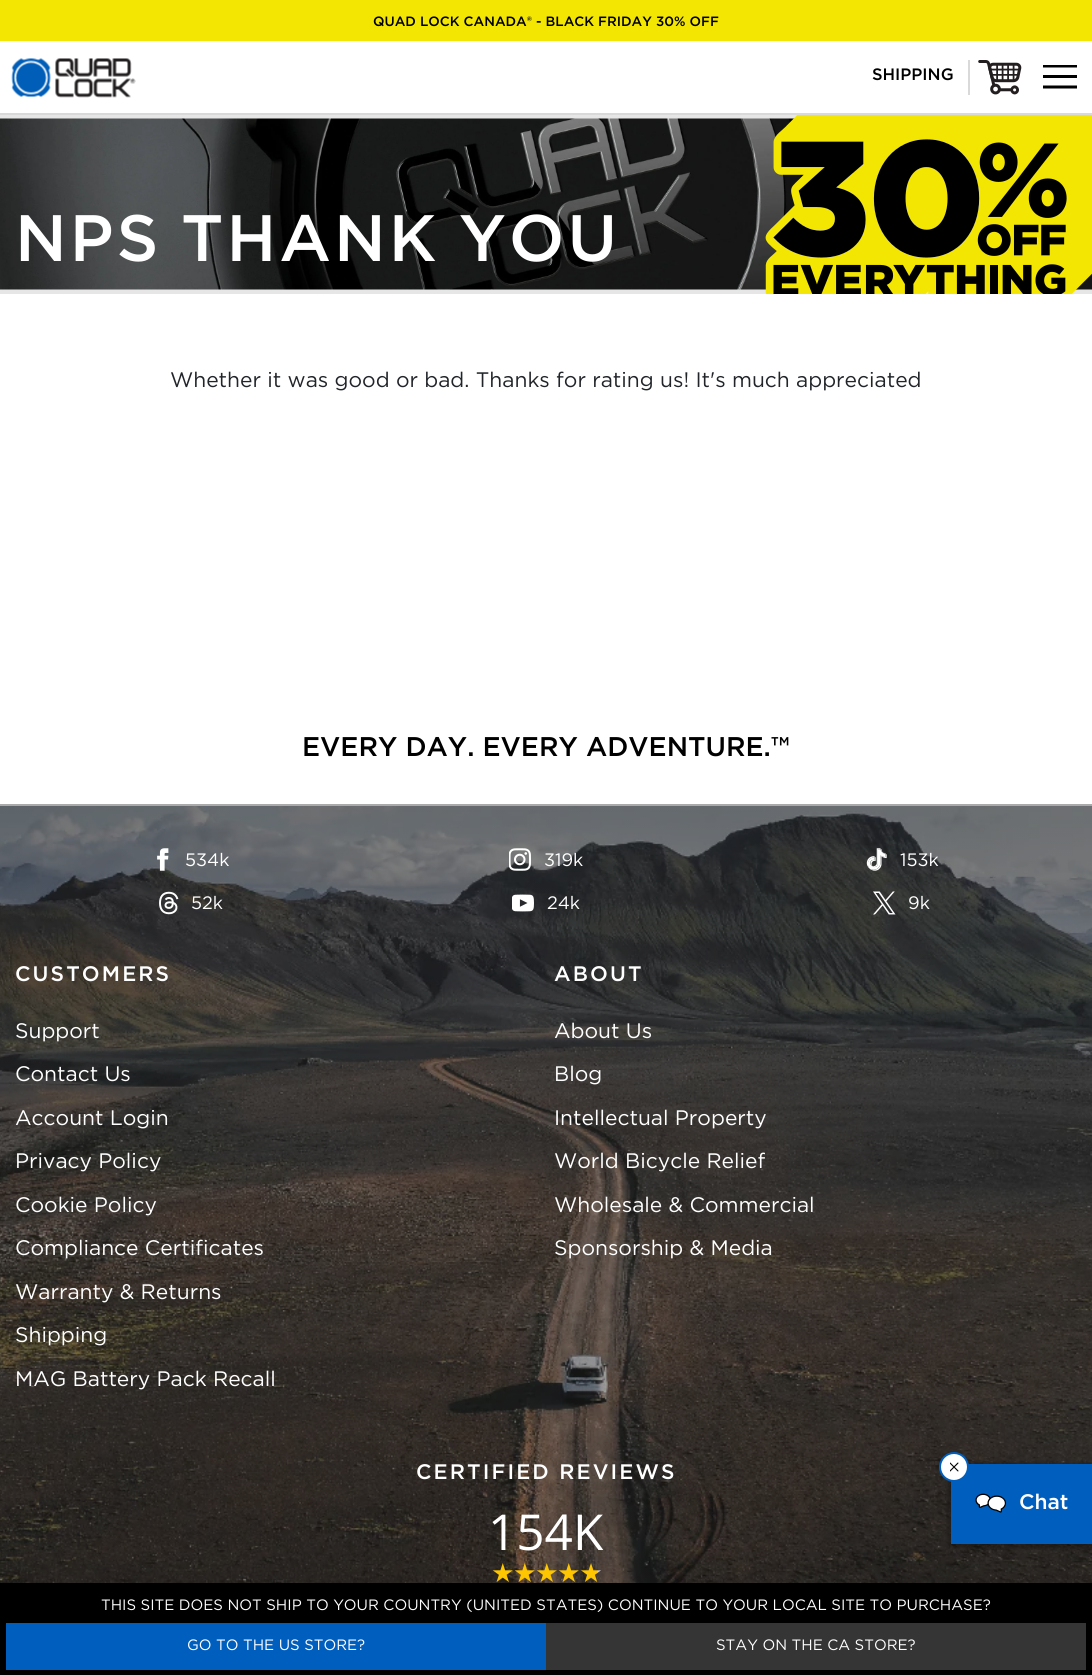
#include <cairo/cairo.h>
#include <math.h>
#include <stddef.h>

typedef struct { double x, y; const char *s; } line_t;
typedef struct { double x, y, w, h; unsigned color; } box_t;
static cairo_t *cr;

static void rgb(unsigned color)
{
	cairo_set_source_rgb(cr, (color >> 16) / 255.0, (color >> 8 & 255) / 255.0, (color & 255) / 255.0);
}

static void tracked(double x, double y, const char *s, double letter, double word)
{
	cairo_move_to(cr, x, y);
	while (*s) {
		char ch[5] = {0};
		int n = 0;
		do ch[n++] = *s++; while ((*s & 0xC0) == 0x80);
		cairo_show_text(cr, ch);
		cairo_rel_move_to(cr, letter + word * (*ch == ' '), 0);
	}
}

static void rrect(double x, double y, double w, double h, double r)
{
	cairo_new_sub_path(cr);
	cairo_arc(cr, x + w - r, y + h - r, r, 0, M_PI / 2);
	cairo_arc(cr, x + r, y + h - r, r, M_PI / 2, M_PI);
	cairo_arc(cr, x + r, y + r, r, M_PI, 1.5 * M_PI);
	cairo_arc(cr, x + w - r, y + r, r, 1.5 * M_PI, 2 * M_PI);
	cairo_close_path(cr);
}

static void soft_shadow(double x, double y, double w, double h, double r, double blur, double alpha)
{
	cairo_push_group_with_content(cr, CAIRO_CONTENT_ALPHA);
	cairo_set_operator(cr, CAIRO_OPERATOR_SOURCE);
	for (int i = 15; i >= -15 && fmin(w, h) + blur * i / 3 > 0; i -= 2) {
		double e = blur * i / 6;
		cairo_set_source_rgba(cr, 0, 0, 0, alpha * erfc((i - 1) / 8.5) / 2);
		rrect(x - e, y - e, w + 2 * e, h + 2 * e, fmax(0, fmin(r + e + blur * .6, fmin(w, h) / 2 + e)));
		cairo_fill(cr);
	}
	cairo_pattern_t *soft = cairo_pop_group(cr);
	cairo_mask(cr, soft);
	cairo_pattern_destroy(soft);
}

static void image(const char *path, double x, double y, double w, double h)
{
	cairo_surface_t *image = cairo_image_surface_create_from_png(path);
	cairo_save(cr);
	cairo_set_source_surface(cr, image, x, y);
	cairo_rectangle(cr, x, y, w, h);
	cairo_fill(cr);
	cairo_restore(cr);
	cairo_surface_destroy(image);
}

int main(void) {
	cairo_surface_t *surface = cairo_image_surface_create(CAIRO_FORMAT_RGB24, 1092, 1675);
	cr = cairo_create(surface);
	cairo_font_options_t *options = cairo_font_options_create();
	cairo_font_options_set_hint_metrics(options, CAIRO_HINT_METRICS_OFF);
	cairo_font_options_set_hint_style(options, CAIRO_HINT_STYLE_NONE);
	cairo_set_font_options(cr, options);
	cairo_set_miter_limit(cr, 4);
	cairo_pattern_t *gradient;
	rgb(0xffffff);
	cairo_paint(cr);
	rgb(0xe6e6e6);
	cairo_rectangle(cr, 0, 115, 1092, 179);
	cairo_fill(cr);
	rgb(0xf3e602);
	cairo_rectangle(cr, 0, 0, 1092, 41);
	cairo_fill(cr);
	image("img/1.png", 11, 58, 125, 40);
	rgb(0xd9d9d9);
	cairo_rectangle(cr, 968, 60, 2, 35);
	cairo_fill(cr);
	image("img/2.png", 978, 60, 44, 35);
	image("img/3.png", 1043, 65, 34, 24);
	cairo_rectangle(cr, 0, 113, 1092, 2);
	cairo_fill(cr);
	image("img/5.png", 0, 118, 1092, 172);
	image("img/4.png", 765, 115, 327, 179);
	image("img/6.png", 0, 806, 1092, 777);
	rgb(0xaaaaaa);
	cairo_rectangle(cr, 0, 804, 1092, 2);
	cairo_fill(cr);
	image("img/7.png", 157, 848, 12, 23);
	image("img/8.png", 509, 848, 22, 23);
	image("img/9.png", 866, 848, 21, 23);
	image("img/10.png", 159, 891, 20, 24);
	image("img/11.png", 512, 894, 22, 18);
	image("img/12.png", 873, 891, 23, 24);
	rgb(0x000000);
	soft_shadow(948, 1463, 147, 85, 0, 2, 0.25);
	rgb(0x005fbe);
	cairo_rectangle(cr, 951, 1464, 141, 80);
	cairo_fill(cr);
	rgb(0xffffff);
	cairo_arc(cr, 954, 1467, 14, 0, 2 * M_PI);
	cairo_fill_preserve(cr);
	rgb(0x005fbe);
	cairo_stroke(cr);
	image("img/13.png", 950, 1462, 9, 10);
	image("img/14.png", 975, 1493, 32, 20);
	{
		static const box_t items[] = {
			{0, 1583, 1092, 92, 0x000000},
			{6, 1623, 540, 47, 0x005fbe},
			{546, 1623, 540, 47, 0x353535},
		};
		for (size_t i = 0; i < sizeof items / sizeof *items; i++) {
			rgb(items[i].color);
			cairo_rectangle(cr, items[i].x, items[i].y, items[i].w, items[i].h);
			cairo_fill(cr);
		}
	}
	cairo_select_font_face(cr, "Gotham Medium", CAIRO_FONT_SLANT_NORMAL, CAIRO_FONT_WEIGHT_NORMAL);
	cairo_set_font_size(cr, 13.5);
	rgb(0x000000);
	cairo_move_to(cr, 373, 26);
	cairo_show_text(cr, "QUAD LOCK CANADA® - BLACK FRIDAY 30% OFF");
	cairo_set_font_size(cr, 16.5);
	cairo_move_to(cr, 872, 80);
	cairo_show_text(cr, "SHIPPING");
	cairo_set_font_size(cr, 65.5);
	rgb(0xffffff);
	tracked(15, 261, "NPS THANK YOU", 3, -3);
	cairo_select_font_face(cr, "Gotham", CAIRO_FONT_SLANT_NORMAL, CAIRO_FONT_WEIGHT_NORMAL);
	cairo_set_font_size(cr, 21);
	rgb(0x212529);
	cairo_move_to(cr, 170, 387);
	cairo_show_text(cr, "Whether it was good or bad. Thanks for rating us! It's much appreciated");
	cairo_select_font_face(cr, "Gotham Medium", CAIRO_FONT_SLANT_NORMAL, CAIRO_FONT_WEIGHT_NORMAL);
	cairo_set_font_size(cr, 27);
	rgb(0x000000);
	cairo_move_to(cr, 302, 756);
	cairo_show_text(cr, "EVERY DAY. EVERY ADVENTURE.™");
	cairo_select_font_face(cr, "Gotham", CAIRO_FONT_SLANT_NORMAL, CAIRO_FONT_WEIGHT_NORMAL);
	cairo_set_font_size(cr, 18);
	rgb(0xffffff);
	{
		static const line_t items[] = {
			{185, 866, "534k"},
			{544, 866, "319k"},
			{900, 866, "153k"},
			{191, 909, "52k"},
			{547, 909, "24k"},
			{908, 909, "9k"},
		};
		for (size_t i = 0; i < sizeof items / sizeof *items; i++) {
			cairo_move_to(cr, items[i].x, items[i].y);
			cairo_show_text(cr, items[i].s);
		}
	}
	cairo_select_font_face(cr, "Gotham Medium", CAIRO_FONT_SLANT_NORMAL, CAIRO_FONT_WEIGHT_NORMAL);
	cairo_set_font_size(cr, 21);
	tracked(15, 981, "CUSTOMERS", 2.1, 0);
	cairo_select_font_face(cr, "Gotham", CAIRO_FONT_SLANT_NORMAL, CAIRO_FONT_WEIGHT_NORMAL);
	{
		static const line_t items[] = {
			{15, 1038, "Support"},
			{15, 1081, "Contact Us"},
			{15, 1125, "Account Login"},
			{15, 1168, "Privacy Policy"},
			{15, 1212, "Cookie Policy"},
			{15, 1255, "Compliance Certificates"},
			{15, 1299, "Warranty & Returns"},
			{15, 1342, "Shipping"},
			{15, 1386, "MAG Battery Pack Recall"},
		};
		for (size_t i = 0; i < sizeof items / sizeof *items; i++) {
			cairo_move_to(cr, items[i].x, items[i].y);
			cairo_show_text(cr, items[i].s);
		}
	}
	cairo_select_font_face(cr, "Gotham Medium", CAIRO_FONT_SLANT_NORMAL, CAIRO_FONT_WEIGHT_NORMAL);
	tracked(554, 981, "ABOUT", 2.1, 0);
	cairo_select_font_face(cr, "Gotham", CAIRO_FONT_SLANT_NORMAL, CAIRO_FONT_WEIGHT_NORMAL);
	{
		static const line_t items[] = {
			{554, 1038, "About Us"},
			{554, 1081, "Blog"},
			{554, 1125, "Intellectual Property"},
			{554, 1168, "World Bicycle Relief"},
			{554, 1212, "Wholesale & Commercial"},
			{554, 1255, "Sponsorship & Media"},
		};
		for (size_t i = 0; i < sizeof items / sizeof *items; i++) {
			cairo_move_to(cr, items[i].x, items[i].y);
			cairo_show_text(cr, items[i].s);
		}
	}
	cairo_select_font_face(cr, "Gotham Medium", CAIRO_FONT_SLANT_NORMAL, CAIRO_FONT_WEIGHT_NORMAL);
	tracked(416, 1479, "CERTIFIED REVIEWS", 2.1, 0);
	cairo_select_font_face(cr, "Open Sans", CAIRO_FONT_SLANT_NORMAL, CAIRO_FONT_WEIGHT_NORMAL);
	cairo_set_font_size(cr, 49.5);
	cairo_move_to(cr, 488, 1550);
	cairo_show_text(cr, "154K");
	cairo_select_font_face(cr, "DejaVu Sans", CAIRO_FONT_SLANT_NORMAL, CAIRO_FONT_WEIGHT_NORMAL);
	cairo_set_font_size(cr, 26.25);
	gradient = cairo_pattern_create_linear(491, 1571, 601, 1571);
	cairo_pattern_add_color_stop_rgba(gradient, 0.96, 0.996, 0.776, 0, 1);
	cairo_pattern_add_color_stop_rgba(gradient, 0.96, 0.8, 0.8, 0.8, 1);
	cairo_set_source(cr, gradient);
	cairo_pattern_destroy(gradient);
	tracked(491, 1582, "★★★★★", -1.5, 0);
	cairo_select_font_face(cr, "Gotham Medium", CAIRO_FONT_SLANT_NORMAL, CAIRO_FONT_WEIGHT_NORMAL);
	cairo_set_font_size(cr, 21);
	rgb(0xffffff);
	cairo_move_to(cr, 1019, 1509);
	cairo_show_text(cr, "Chat");
	cairo_select_font_face(cr, "Gotham", CAIRO_FONT_SLANT_NORMAL, CAIRO_FONT_WEIGHT_NORMAL);
	cairo_set_font_size(cr, 15);
	{
		static const line_t items[] = {
			{101, 1610, "THIS SITE DOES NOT SHIP TO YOUR COUNTRY (UNITED STATES) CONTINUE TO YOUR LOCAL SITE TO PURCHASE?"},
			{187, 1650, "GO TO THE US STORE?"},
			{716, 1650, "STAY ON THE CA STORE?"},
		};
		for (size_t i = 0; i < sizeof items / sizeof *items; i++) {
			cairo_move_to(cr, items[i].x, items[i].y);
			cairo_show_text(cr, items[i].s);
		}
	}
	cairo_surface_write_to_png(surface, "page.png");
	cairo_font_options_destroy(options);
	cairo_destroy(cr);
	cairo_surface_destroy(surface);
	return 0;
}
